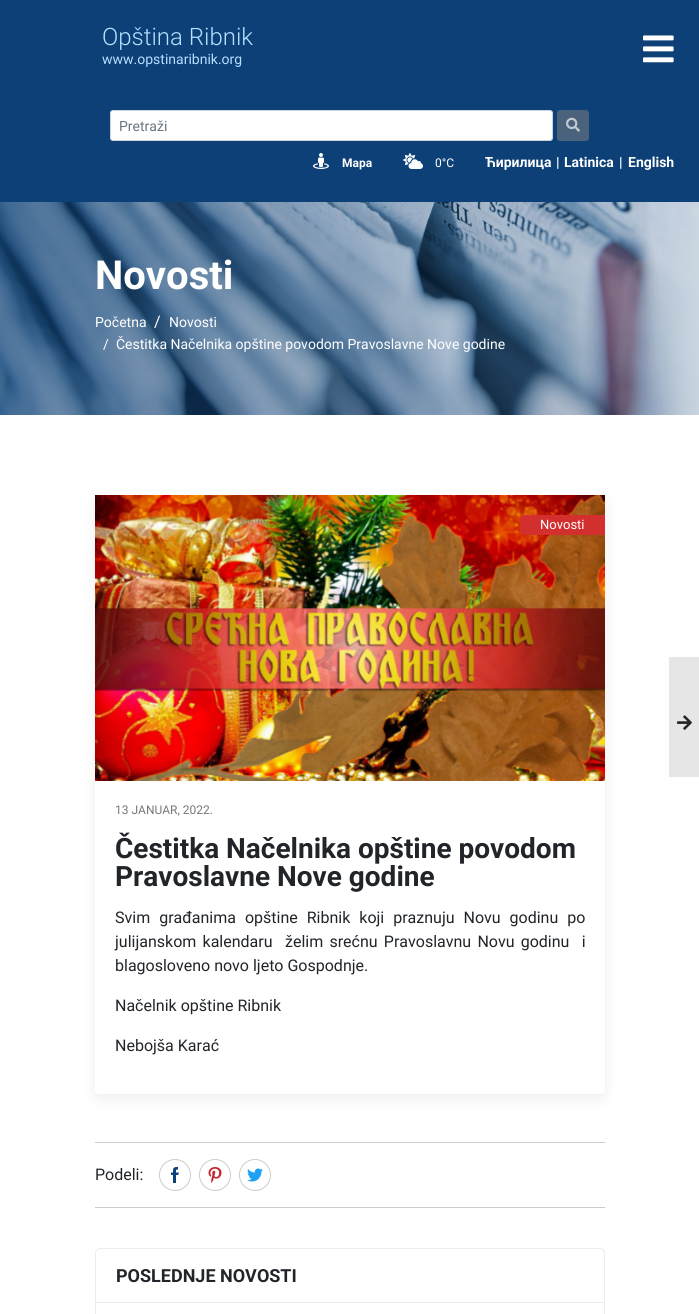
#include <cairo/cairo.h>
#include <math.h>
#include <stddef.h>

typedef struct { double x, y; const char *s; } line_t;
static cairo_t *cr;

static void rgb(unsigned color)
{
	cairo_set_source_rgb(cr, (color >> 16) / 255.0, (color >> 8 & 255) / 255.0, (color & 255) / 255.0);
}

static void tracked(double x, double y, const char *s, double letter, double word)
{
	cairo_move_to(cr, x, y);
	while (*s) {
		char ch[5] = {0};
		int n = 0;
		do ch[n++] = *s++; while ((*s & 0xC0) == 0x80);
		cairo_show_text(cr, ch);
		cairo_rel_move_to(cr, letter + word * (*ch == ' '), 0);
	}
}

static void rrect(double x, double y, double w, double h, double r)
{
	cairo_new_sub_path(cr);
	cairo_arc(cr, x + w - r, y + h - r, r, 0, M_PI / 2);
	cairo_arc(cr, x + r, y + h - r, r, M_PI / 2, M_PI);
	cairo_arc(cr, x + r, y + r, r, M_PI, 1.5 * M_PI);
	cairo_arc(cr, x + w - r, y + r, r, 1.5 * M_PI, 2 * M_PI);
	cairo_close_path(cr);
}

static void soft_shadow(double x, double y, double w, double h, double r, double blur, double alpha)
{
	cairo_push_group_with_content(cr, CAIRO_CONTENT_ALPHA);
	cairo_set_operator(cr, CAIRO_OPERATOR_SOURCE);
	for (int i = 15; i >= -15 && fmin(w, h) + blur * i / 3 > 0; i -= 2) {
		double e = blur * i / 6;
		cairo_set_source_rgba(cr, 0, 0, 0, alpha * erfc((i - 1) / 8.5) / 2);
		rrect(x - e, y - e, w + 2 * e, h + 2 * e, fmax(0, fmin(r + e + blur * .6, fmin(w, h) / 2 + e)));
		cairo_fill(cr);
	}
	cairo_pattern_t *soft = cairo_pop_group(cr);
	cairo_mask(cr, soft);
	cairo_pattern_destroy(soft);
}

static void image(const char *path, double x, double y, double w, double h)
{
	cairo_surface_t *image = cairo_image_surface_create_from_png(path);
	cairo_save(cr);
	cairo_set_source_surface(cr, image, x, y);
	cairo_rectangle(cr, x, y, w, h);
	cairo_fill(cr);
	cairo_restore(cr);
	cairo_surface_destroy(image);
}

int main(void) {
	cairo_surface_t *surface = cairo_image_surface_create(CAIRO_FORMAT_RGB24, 699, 1314);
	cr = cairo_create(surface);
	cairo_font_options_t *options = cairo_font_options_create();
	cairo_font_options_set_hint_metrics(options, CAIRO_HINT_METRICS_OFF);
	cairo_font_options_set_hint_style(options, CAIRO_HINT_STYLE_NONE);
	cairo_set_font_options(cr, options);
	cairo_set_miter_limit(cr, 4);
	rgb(0xffffff);
	cairo_paint(cr);
	rgb(0x0c4076);
	cairo_rectangle(cr, 0, 0, 699, 202);
	cairo_fill(cr);
	image("img/1.png", 643, 35, 31, 28);
	rgb(0xffffff);
	rrect(110.5, 110.5, 442, 30, 2.5);
	cairo_fill_preserve(cr);
	rgb(0xced4da);
	cairo_set_line_width(cr, 1);
	cairo_stroke(cr);
	rgb(0x4a627b);
	rrect(557.5, 110.5, 31, 30, 2.5);
	cairo_fill_preserve(cr);
	cairo_stroke(cr);
	image("img/2.png", 566, 117, 14, 15);
	image("img/3.png", 313, 153, 16, 16);
	image("img/4.png", 403, 153, 20, 16);
	image("img/5.png", 0, 202, 699, 213);
	cairo_save(cr);
	cairo_set_fill_rule(cr, CAIRO_FILL_RULE_EVEN_ODD);
	cairo_new_path(cr);
	cairo_move_to(cr, 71, 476);
	cairo_line_to(cr, 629, 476);
	cairo_line_to(cr, 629, 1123);
	cairo_line_to(cr, 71, 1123);
	cairo_close_path(cr);
	cairo_move_to(cr, 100, 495);
	cairo_line_to(cr, 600, 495);
	cairo_curve_to(cr, 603, 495, 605, 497, 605, 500);
	cairo_line_to(cr, 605, 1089);
	cairo_curve_to(cr, 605, 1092, 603, 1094, 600, 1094);
	cairo_line_to(cr, 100, 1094);
	cairo_curve_to(cr, 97, 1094, 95, 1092, 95, 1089);
	cairo_line_to(cr, 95, 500);
	cairo_curve_to(cr, 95, 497, 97, 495, 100, 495);
	cairo_close_path(cr);
	cairo_clip(cr);
	rgb(0x000000);
	soft_shadow(95, 500, 510, 599, 5, 7.5, 0.07);
	cairo_restore(cr);
	image("img/6.png", 95, 495, 510, 286);
	rgb(0xd32f2f);
	cairo_new_path(cr);
	cairo_move_to(cr, 525, 515);
	cairo_line_to(cr, 605, 515);
	cairo_line_to(cr, 605, 535);
	cairo_line_to(cr, 525, 535);
	cairo_curve_to(cr, 522, 535, 520, 533, 520, 530);
	cairo_line_to(cr, 520, 520);
	cairo_curve_to(cr, 520, 517, 522, 515, 525, 515);
	cairo_close_path(cr);
	cairo_fill(cr);
	rgb(0xcccccc);
	cairo_rectangle(cr, 95, 1142, 510, 1);
	cairo_fill(cr);
	cairo_rectangle(cr, 95, 1207, 510, 1);
	cairo_fill(cr);
	cairo_arc(cr, 175, 1175, 15.5, 0, 2 * M_PI);
	cairo_stroke(cr);
	image("img/7.png", 171, 1167, 8, 16);
	cairo_arc(cr, 215, 1175, 15.5, 0, 2 * M_PI);
	cairo_stroke(cr);
	image("img/8.png", 208, 1167, 14, 16);
	cairo_arc(cr, 255, 1175, 15.5, 0, 2 * M_PI);
	cairo_stroke(cr);
	image("img/9.png", 247, 1168, 16, 14);
	rrect(95.5, 1248.5, 509, 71, 4.5);
	rgb(0xececec);
	cairo_stroke(cr);
	cairo_rectangle(cr, 96, 1302, 508, 1);
	cairo_fill(cr);
	rgb(0xe6e6e6);
	cairo_rectangle(cr, 669, 657, 30, 120);
	cairo_fill(cr);
	image("img/10.png", 677, 715, 15, 15);
	cairo_select_font_face(cr, "Roboto Light", CAIRO_FONT_SLANT_NORMAL, CAIRO_FONT_WEIGHT_NORMAL);
	cairo_set_font_size(cr, 24);
	rgb(0xb6dfff);
	cairo_move_to(cr, 102, 45);
	cairo_show_text(cr, "Opština Ribnik");
	cairo_select_font_face(cr, "Roboto", CAIRO_FONT_SLANT_NORMAL, CAIRO_FONT_WEIGHT_NORMAL);
	cairo_set_font_size(cr, 14);
	cairo_move_to(cr, 102, 64);
	cairo_show_text(cr, "www.opstinaribnik.org");
	rgb(0x6c757d);
	cairo_move_to(cr, 119, 131);
	cairo_show_text(cr, "Pretraži");
	cairo_select_font_face(cr, "Roboto", CAIRO_FONT_SLANT_NORMAL, CAIRO_FONT_WEIGHT_BOLD);
	cairo_set_font_size(cr, 12);
	rgb(0xffffff);
	cairo_move_to(cr, 342, 167);
	cairo_show_text(cr, "Mapa");
	cairo_select_font_face(cr, "Roboto", CAIRO_FONT_SLANT_NORMAL, CAIRO_FONT_WEIGHT_NORMAL);
	cairo_move_to(cr, 435, 167);
	cairo_show_text(cr, "0°C");
	cairo_select_font_face(cr, "Roboto", CAIRO_FONT_SLANT_NORMAL, CAIRO_FONT_WEIGHT_BOLD);
	cairo_set_font_size(cr, 14);
	{
		static const line_t items[] = {
			{485, 167, "Ћирилица"},
			{556, 167, "|"},
			{564, 167, "Latinica"},
			{619, 167, "|"},
			{628, 167, "English"},
		};
		for (size_t i = 0; i < sizeof items / sizeof *items; i++) {
			cairo_move_to(cr, items[i].x, items[i].y);
			cairo_show_text(cr, items[i].s);
		}
	}
	cairo_set_font_size(cr, 40);
	cairo_move_to(cr, 95, 289);
	cairo_show_text(cr, "Novosti");
	cairo_select_font_face(cr, "Roboto", CAIRO_FONT_SLANT_NORMAL, CAIRO_FONT_WEIGHT_NORMAL);
	cairo_set_font_size(cr, 14);
	cairo_move_to(cr, 95, 327);
	cairo_show_text(cr, "Početna");
	cairo_set_font_size(cr, 16);
	cairo_move_to(cr, 154, 327);
	cairo_show_text(cr, "/");
	cairo_set_font_size(cr, 14);
	{
		static const line_t items[] = {
			{169, 327, "Novosti"},
			{103, 349, "/"},
			{116, 349, "Čestitka Načelnika opštine povodom Pravoslavne Nove godine"},
		};
		for (size_t i = 0; i < sizeof items / sizeof *items; i++) {
			cairo_move_to(cr, items[i].x, items[i].y);
			cairo_show_text(cr, items[i].s);
		}
	}
	cairo_set_font_size(cr, 13);
	cairo_move_to(cr, 540, 529);
	cairo_show_text(cr, "Novosti");
	cairo_set_font_size(cr, 12);
	rgb(0x777777);
	cairo_move_to(cr, 115, 814);
	cairo_show_text(cr, "13 JANUAR, 2022.");
	cairo_select_font_face(cr, "Roboto", CAIRO_FONT_SLANT_NORMAL, CAIRO_FONT_WEIGHT_BOLD);
	cairo_set_font_size(cr, 28);
	rgb(0x212529);
	cairo_move_to(cr, 115, 858);
	cairo_show_text(cr, "Čestitka Načelnika opštine povodom");
	cairo_move_to(cr, 115, 886);
	cairo_show_text(cr, "Pravoslavne Nove godine");
	cairo_select_font_face(cr, "Roboto", CAIRO_FONT_SLANT_NORMAL, CAIRO_FONT_WEIGHT_NORMAL);
	cairo_set_font_size(cr, 16);
	tracked(115, 923, "Svim građanima opštine Ribnik koji praznuju Novu godinu po", 0, 5);
	tracked(115, 947, "julijanskom kalendaru  želim srećnu Pravoslavnu Novu godinu  i", 0, 2.25);
	{
		static const line_t items[] = {
			{115, 971, "blagosloveno novo ljeto Gospodnje."},
			{115, 1011, "Načelnik opštine Ribnik"},
			{115, 1051, "Nebojša Karać"},
			{95, 1180, "Podeli:"},
		};
		for (size_t i = 0; i < sizeof items / sizeof *items; i++) {
			cairo_move_to(cr, items[i].x, items[i].y);
			cairo_show_text(cr, items[i].s);
		}
	}
	cairo_select_font_face(cr, "Roboto", CAIRO_FONT_SLANT_NORMAL, CAIRO_FONT_WEIGHT_BOLD);
	cairo_set_font_size(cr, 18);
	cairo_move_to(cr, 116, 1282);
	cairo_show_text(cr, "POSLEDNJE NOVOSTI");
	cairo_surface_write_to_png(surface, "page.png");
	cairo_font_options_destroy(options);
	cairo_destroy(cr);
	cairo_surface_destroy(surface);
	return 0;
}
